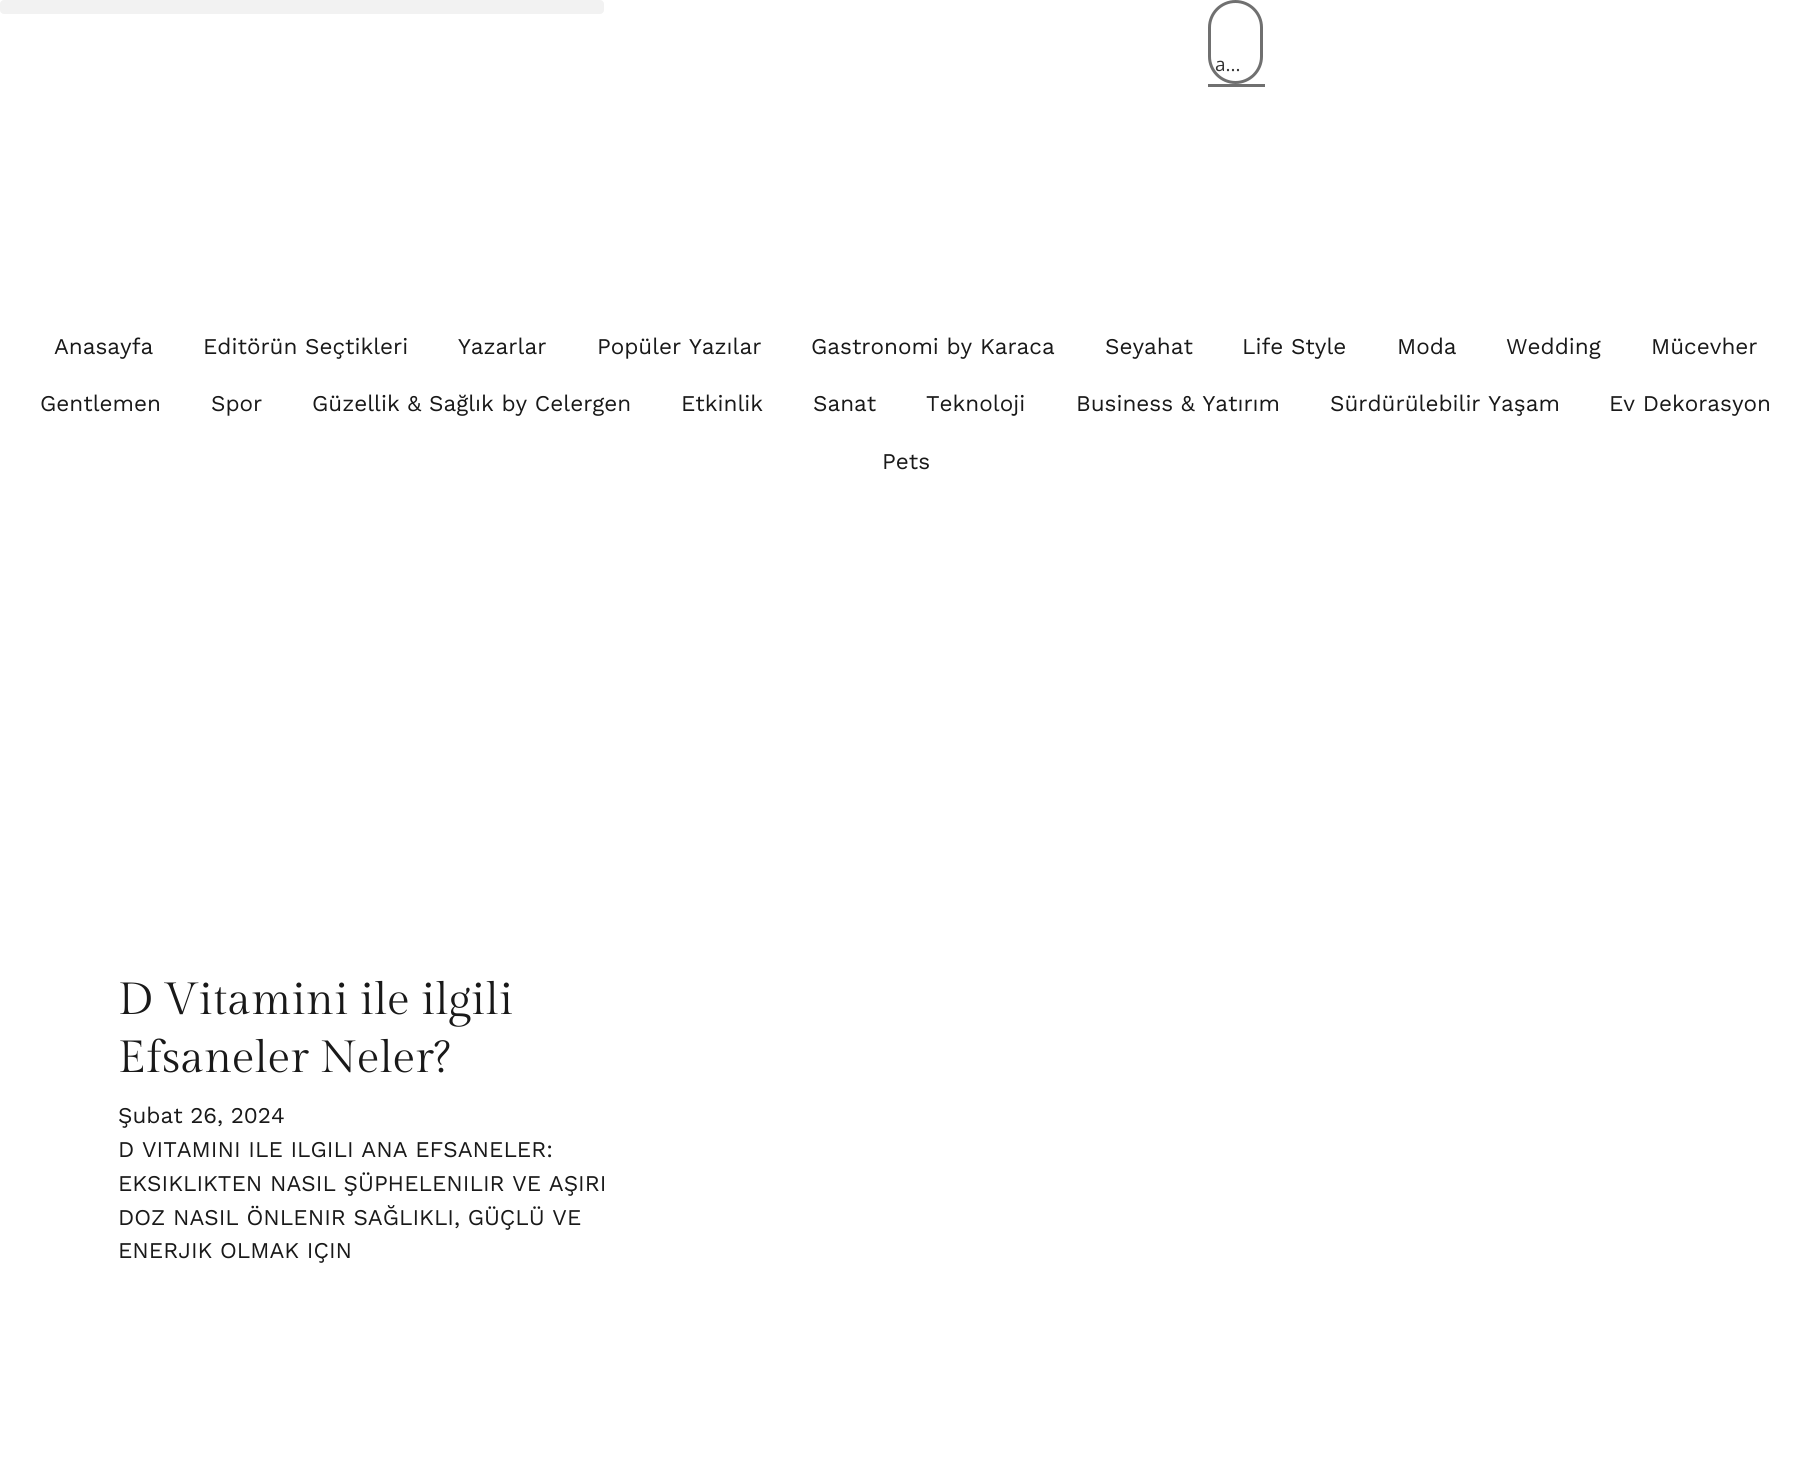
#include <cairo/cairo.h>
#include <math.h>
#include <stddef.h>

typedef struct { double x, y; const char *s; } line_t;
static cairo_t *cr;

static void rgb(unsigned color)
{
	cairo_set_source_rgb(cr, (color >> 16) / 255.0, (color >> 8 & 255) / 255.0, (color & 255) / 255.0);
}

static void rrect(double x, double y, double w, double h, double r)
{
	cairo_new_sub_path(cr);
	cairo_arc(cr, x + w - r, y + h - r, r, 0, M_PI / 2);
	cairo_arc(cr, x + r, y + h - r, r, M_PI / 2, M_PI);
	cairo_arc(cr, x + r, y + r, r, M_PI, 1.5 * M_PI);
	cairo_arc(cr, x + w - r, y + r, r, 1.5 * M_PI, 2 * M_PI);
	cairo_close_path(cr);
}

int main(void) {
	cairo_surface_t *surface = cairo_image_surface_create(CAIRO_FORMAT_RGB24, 1811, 1465);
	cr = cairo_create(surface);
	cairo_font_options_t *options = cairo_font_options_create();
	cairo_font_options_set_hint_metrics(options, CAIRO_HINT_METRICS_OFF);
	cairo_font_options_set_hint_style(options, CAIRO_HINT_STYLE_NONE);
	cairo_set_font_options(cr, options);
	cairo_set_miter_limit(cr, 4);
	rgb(0xffffff);
	cairo_paint(cr);
	rgb(0xf2f2f2);
	rrect(0, 0, 604, 14, 4);
	cairo_fill(cr);
	rrect(1209.5, 1.5, 52, 81, 26);
	rgb(0x707070);
	cairo_set_line_width(cr, 3);
	cairo_stroke(cr);
	cairo_save(cr);
	cairo_rectangle(cr, 1218, 46, 35, 35);
	cairo_clip(cr);
	cairo_set_source_rgba(cr, 1, 1, 1, 0.64);
	cairo_new_path(cr);
	cairo_move_to(cr, 1216, 48);
	cairo_line_to(cr, 1251, 48);
	cairo_line_to(cr, 1251, 75);
	cairo_curve_to(cr, 1256, 71, 1260, 64, 1260, 56);
	cairo_line_to(cr, 1260, 28);
	cairo_curve_to(cr, 1260, 14, 1249, 3, 1235, 3);
	cairo_curve_to(cr, 1221, 3, 1210, 14, 1210, 28);
	cairo_line_to(cr, 1210, 56);
	cairo_curve_to(cr, 1210, 62, 1212, 68, 1216, 72);
	cairo_close_path(cr);
	cairo_fill(cr);
	cairo_restore(cr);
	cairo_rectangle(cr, 1208, 84, 57, 3);
	cairo_fill(cr);
	cairo_select_font_face(cr, "Open Sans", CAIRO_FONT_SLANT_NORMAL, CAIRO_FONT_WEIGHT_NORMAL);
	cairo_set_font_size(cr, 19);
	rgb(0x333333);
	cairo_move_to(cr, 1215, 71);
	cairo_show_text(cr, "a...");
	cairo_select_font_face(cr, "Work Sans", CAIRO_FONT_SLANT_NORMAL, CAIRO_FONT_WEIGHT_NORMAL);
	cairo_set_font_size(cr, 22.5);
	rgb(0x191919);
	{
		static const line_t items[] = {
			{54, 354, "Anasayfa"},
			{203, 354, "Editörün Seçtikleri"},
			{458, 354, "Yazarlar"},
			{597, 354, "Popüler Yazılar"},
			{811, 354, "Gastronomi by Karaca"},
			{1105, 354, "Seyahat"},
			{1242, 354, "Life Style"},
			{1397, 354, "Moda"},
			{1506, 354, "Wedding"},
			{1651, 354, "Mücevher"},
			{40, 411, "Gentlemen"},
			{211, 411, "Spor"},
			{312, 411, "Güzellik & Sağlık by Celergen"},
			{681, 411, "Etkinlik"},
			{813, 411, "Sanat"},
			{926, 411, "Teknoloji"},
			{1076, 411, "Business & Yatırım"},
			{1330, 411, "Sürdürülebilir Yaşam"},
			{1609, 411, "Ev Dekorasyon"},
			{882, 469, "Pets"},
		};
		for (size_t i = 0; i < sizeof items / sizeof *items; i++) {
			cairo_move_to(cr, items[i].x, items[i].y);
			cairo_show_text(cr, items[i].s);
		}
	}
	cairo_select_font_face(cr, "Gilda Display", CAIRO_FONT_SLANT_NORMAL, CAIRO_FONT_WEIGHT_NORMAL);
	cairo_set_font_size(cr, 45);
	cairo_move_to(cr, 118, 1014);
	cairo_show_text(cr, "D Vitamini ile ilgili");
	cairo_move_to(cr, 118, 1072);
	cairo_show_text(cr, "Efsaneler Neler?");
	cairo_select_font_face(cr, "Work Sans", CAIRO_FONT_SLANT_NORMAL, CAIRO_FONT_WEIGHT_NORMAL);
	cairo_set_font_size(cr, 22.5);
	{
		static const line_t items[] = {
			{118, 1123, "Şubat 26, 2024"},
			{118, 1157, "D VITAMINI ILE ILGILI ANA EFSANELER:"},
			{118, 1191, "EKSIKLIKTEN NASIL ŞÜPHELENILIR VE AŞIRI"},
			{118, 1225, "DOZ NASIL ÖNLENIR SAĞLIKLI, GÜÇLÜ VE"},
			{118, 1258, "ENERJIK OLMAK IÇIN"},
		};
		for (size_t i = 0; i < sizeof items / sizeof *items; i++) {
			cairo_move_to(cr, items[i].x, items[i].y);
			cairo_show_text(cr, items[i].s);
		}
	}
	cairo_surface_write_to_png(surface, "page.png");
	cairo_font_options_destroy(options);
	cairo_destroy(cr);
	cairo_surface_destroy(surface);
	return 0;
}
